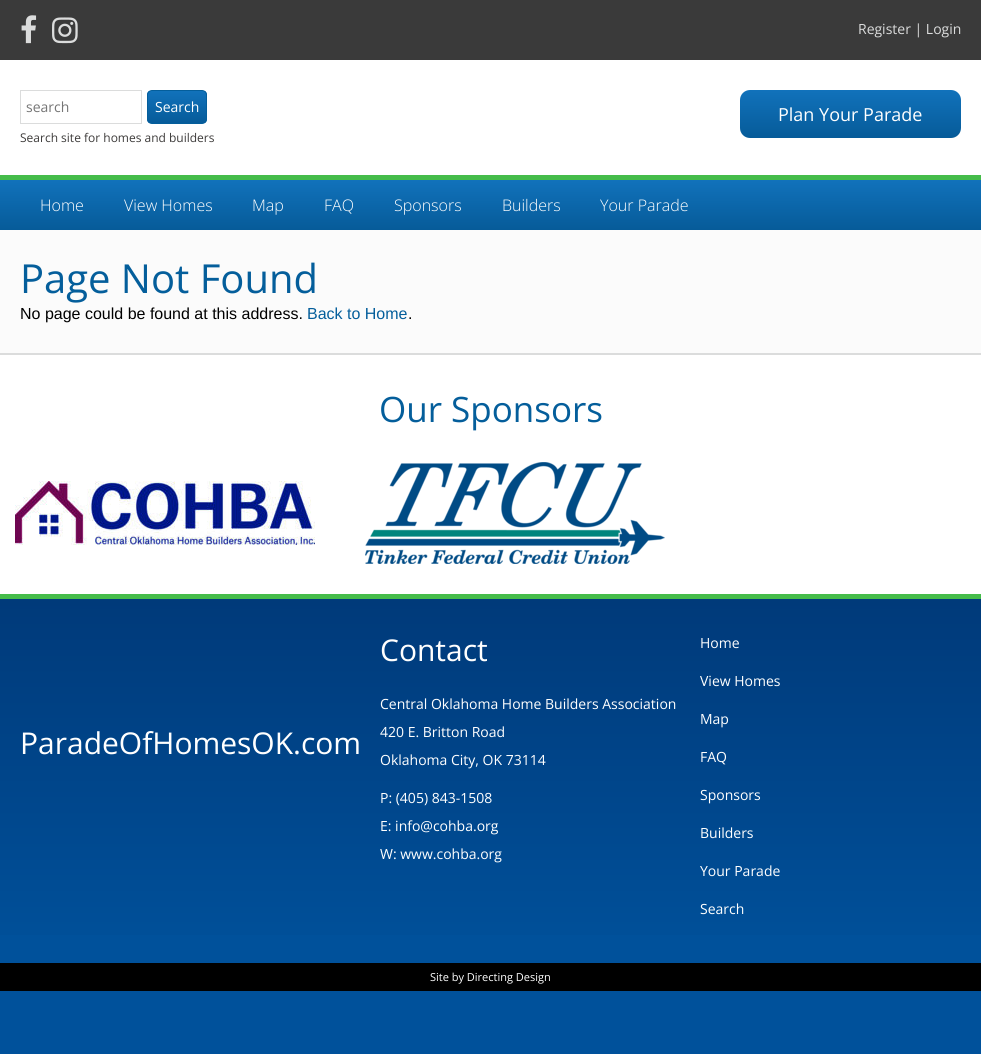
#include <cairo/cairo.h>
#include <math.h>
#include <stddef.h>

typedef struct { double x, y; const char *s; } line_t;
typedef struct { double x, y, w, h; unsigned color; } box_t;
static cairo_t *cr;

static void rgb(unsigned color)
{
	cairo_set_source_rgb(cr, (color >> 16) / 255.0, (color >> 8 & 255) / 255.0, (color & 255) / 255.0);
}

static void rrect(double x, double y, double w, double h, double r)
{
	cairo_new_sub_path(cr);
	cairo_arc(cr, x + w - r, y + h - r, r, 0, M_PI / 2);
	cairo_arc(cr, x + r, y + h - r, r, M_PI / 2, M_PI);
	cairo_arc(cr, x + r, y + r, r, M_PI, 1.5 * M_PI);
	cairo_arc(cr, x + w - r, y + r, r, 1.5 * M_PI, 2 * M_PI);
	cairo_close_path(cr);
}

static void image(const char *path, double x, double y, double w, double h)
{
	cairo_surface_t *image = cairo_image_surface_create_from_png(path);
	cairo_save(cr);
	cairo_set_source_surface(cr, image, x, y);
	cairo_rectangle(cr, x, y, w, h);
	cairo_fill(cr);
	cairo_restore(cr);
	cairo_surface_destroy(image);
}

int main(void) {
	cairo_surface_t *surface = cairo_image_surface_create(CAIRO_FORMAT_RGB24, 981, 1054);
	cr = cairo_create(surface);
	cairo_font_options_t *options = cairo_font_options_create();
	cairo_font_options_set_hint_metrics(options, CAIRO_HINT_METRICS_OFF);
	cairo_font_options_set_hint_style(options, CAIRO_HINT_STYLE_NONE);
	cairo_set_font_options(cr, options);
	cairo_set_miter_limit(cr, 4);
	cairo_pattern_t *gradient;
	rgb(0x00519b);
	cairo_paint(cr);
	rgb(0xffffff);
	cairo_rectangle(cr, 0, 60, 981, 534);
	cairo_fill(cr);
	rgb(0x3a3a3a);
	cairo_rectangle(cr, 0, 0, 981, 60);
	cairo_fill(cr);
	image("img/1.png", 21, 15, 16, 29);
	image("img/2.png", 52, 17, 26, 27);
	cairo_rectangle(cr, 20.5, 90.5, 121, 33);
	rgb(0xdbdcdc);
	cairo_set_line_width(cr, 1);
	cairo_stroke(cr);
	cairo_save(cr);
	rrect(147, 90, 60, 34, 5);
	cairo_clip(cr);
	gradient = cairo_pattern_create_linear(177, 91, 177, 123);
	cairo_pattern_add_color_stop_rgba(gradient, 0, 0.067, 0.447, 0.733, 1);
	cairo_pattern_add_color_stop_rgba(gradient, 1, 0.024, 0.357, 0.6, 1);
	cairo_set_source(cr, gradient);
	cairo_pattern_destroy(gradient);
	cairo_rectangle(cr, 147, 91, 60, 32);
	cairo_fill(cr);
	cairo_restore(cr);
	rrect(147.5, 90.5, 59, 33, 4.5);
	rgb(0x045e9b);
	cairo_stroke(cr);
	gradient = cairo_pattern_create_linear(851, 90, 851, 138);
	cairo_pattern_add_color_stop_rgba(gradient, 0, 0.067, 0.447, 0.733, 1);
	cairo_pattern_add_color_stop_rgba(gradient, 1, 0.024, 0.357, 0.6, 1);
	cairo_set_source(cr, gradient);
	cairo_pattern_destroy(gradient);
	rrect(740, 90, 221, 48, 10);
	cairo_fill(cr);
	gradient = cairo_pattern_create_linear(491, 180, 491, 230);
	cairo_pattern_add_color_stop_rgba(gradient, 0, 0.067, 0.447, 0.733, 1);
	cairo_pattern_add_color_stop_rgba(gradient, 1, 0.024, 0.357, 0.6, 1);
	cairo_set_source(cr, gradient);
	cairo_pattern_destroy(gradient);
	cairo_rectangle(cr, 0, 180, 981, 50);
	cairo_fill(cr);
	{
		static const box_t items[] = {
			{0, 175, 981, 5, 0x45bc4a},
			{0, 230, 981, 123, 0xfbfbfb},
			{0, 353, 981, 2, 0xdbdcdc},
		};
		for (size_t i = 0; i < sizeof items / sizeof *items; i++) {
			rgb(items[i].color);
			cairo_rectangle(cr, items[i].x, items[i].y, items[i].w, items[i].h);
			cairo_fill(cr);
		}
	}
	image("img/3.png", 15, 481, 300, 64);
	image("img/4.png", 365, 462, 300, 102);
	gradient = cairo_pattern_create_linear(491, 599, 491, 963);
	cairo_pattern_add_color_stop_rgba(gradient, 0, 0, 0.227, 0.478, 1);
	cairo_pattern_add_color_stop_rgba(gradient, 1, 0, 0.318, 0.608, 1);
	cairo_set_source(cr, gradient);
	cairo_pattern_destroy(gradient);
	cairo_rectangle(cr, 0, 599, 981, 336);
	cairo_fill(cr);
	rgb(0x45bc4a);
	cairo_rectangle(cr, 0, 594, 981, 5);
	cairo_fill(cr);
	rgb(0x000000);
	cairo_rectangle(cr, 0, 963, 981, 28);
	cairo_fill(cr);
	cairo_select_font_face(cr, "Open Sans", CAIRO_FONT_SLANT_NORMAL, CAIRO_FONT_WEIGHT_NORMAL);
	cairo_set_font_size(cr, 14);
	rgb(0xdbdcdc);
	cairo_move_to(cr, 858, 34);
	cairo_show_text(cr, "Register | Login");
	rgb(0x757575);
	cairo_move_to(cr, 26, 112);
	cairo_show_text(cr, "search");
	rgb(0xffffff);
	cairo_move_to(cr, 155, 112);
	cairo_show_text(cr, "Search");
	cairo_set_font_size(cr, 12);
	rgb(0x3d3b3a);
	cairo_move_to(cr, 20, 142);
	cairo_show_text(cr, "Search site for homes and builders");
	cairo_set_font_size(cr, 18);
	rgb(0xffffff);
	cairo_move_to(cr, 778, 121);
	cairo_show_text(cr, "Plan Your Parade");
	cairo_select_font_face(cr, "Open Sans Light", CAIRO_FONT_SLANT_NORMAL, CAIRO_FONT_WEIGHT_NORMAL);
	cairo_set_font_size(cr, 16);
	{
		static const line_t items[] = {
			{40, 211, "Home"},
			{124, 211, "View Homes"},
			{252, 211, "Map"},
			{324, 211, "FAQ"},
			{394, 211, "Sponsors"},
			{502, 211, "Builders"},
			{600, 211, "Your Parade"},
		};
		for (size_t i = 0; i < sizeof items / sizeof *items; i++) {
			cairo_move_to(cr, items[i].x, items[i].y);
			cairo_show_text(cr, items[i].s);
		}
	}
	cairo_select_font_face(cr, "Open Sans", CAIRO_FONT_SLANT_NORMAL, CAIRO_FONT_WEIGHT_NORMAL);
	cairo_set_font_size(cr, 40);
	rgb(0x045e9b);
	cairo_move_to(cr, 20, 293);
	cairo_show_text(cr, "Page Not Found");
	cairo_select_font_face(cr, "Liberation Sans", CAIRO_FONT_SLANT_NORMAL, CAIRO_FONT_WEIGHT_NORMAL);
	cairo_set_font_size(cr, 16);
	rgb(0x000000);
	cairo_move_to(cr, 20, 319);
	cairo_show_text(cr, "No page could be found at this address.");
	rgb(0x045e9b);
	cairo_move_to(cr, 307, 319);
	cairo_show_text(cr, "Back to Home");
	rgb(0x000000);
	cairo_move_to(cr, 408, 319);
	cairo_show_text(cr, ".");
	cairo_select_font_face(cr, "Open Sans", CAIRO_FONT_SLANT_NORMAL, CAIRO_FONT_WEIGHT_NORMAL);
	cairo_set_font_size(cr, 35);
	rgb(0x045e9b);
	cairo_move_to(cr, 379, 422);
	cairo_show_text(cr, "Our Sponsors");
	cairo_set_font_size(cr, 30);
	rgb(0xffffff);
	cairo_move_to(cr, 20, 754);
	cairo_show_text(cr, "ParadeOfHomesOK.com");
	cairo_move_to(cr, 380, 661);
	cairo_show_text(cr, "Contact");
	cairo_set_font_size(cr, 14);
	{
		static const line_t items[] = {
			{380, 709, "Central Oklahoma Home Builders Association"},
			{380, 737, "420 E. Britton Road"},
			{380, 765, "Oklahoma City, OK 73114"},
			{380, 803, "P: (405) 843-1508"},
			{380, 831, "E: info@cohba.org"},
			{380, 859, "W: www.cohba.org"},
			{700, 648, "Home"},
			{700, 686, "View Homes"},
			{700, 724, "Map"},
			{700, 762, "FAQ"},
			{700, 800, "Sponsors"},
			{700, 838, "Builders"},
			{700, 876, "Your Parade"},
			{700, 914, "Search"},
		};
		for (size_t i = 0; i < sizeof items / sizeof *items; i++) {
			cairo_move_to(cr, items[i].x, items[i].y);
			cairo_show_text(cr, items[i].s);
		}
	}
	cairo_set_font_size(cr, 11);
	cairo_move_to(cr, 430, 981);
	cairo_show_text(cr, "Site by Directing Design");
	cairo_surface_write_to_png(surface, "page.png");
	cairo_font_options_destroy(options);
	cairo_destroy(cr);
	cairo_surface_destroy(surface);
	return 0;
}
